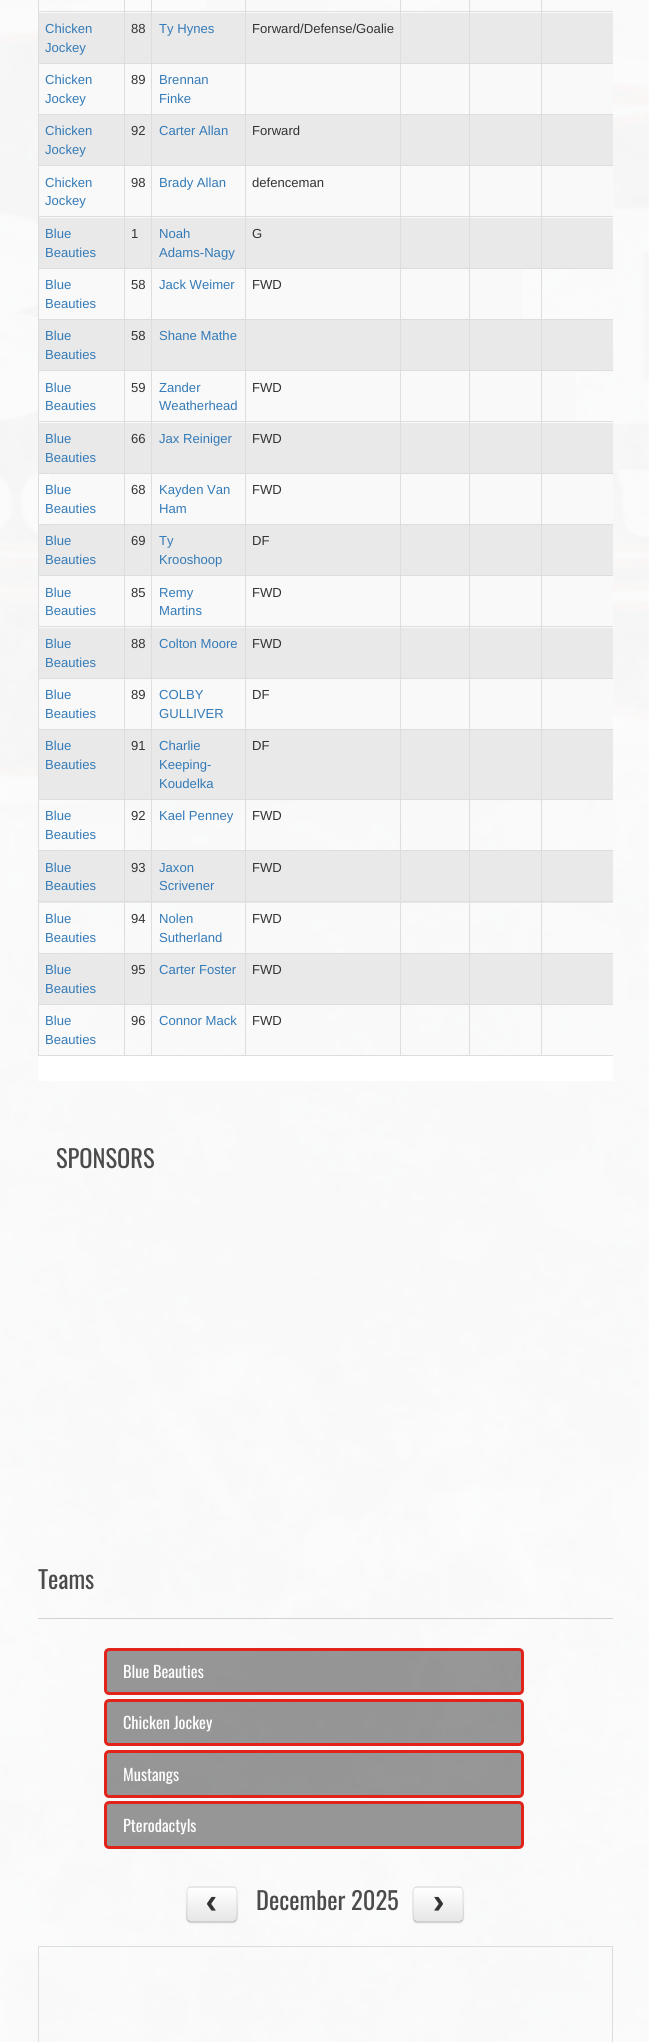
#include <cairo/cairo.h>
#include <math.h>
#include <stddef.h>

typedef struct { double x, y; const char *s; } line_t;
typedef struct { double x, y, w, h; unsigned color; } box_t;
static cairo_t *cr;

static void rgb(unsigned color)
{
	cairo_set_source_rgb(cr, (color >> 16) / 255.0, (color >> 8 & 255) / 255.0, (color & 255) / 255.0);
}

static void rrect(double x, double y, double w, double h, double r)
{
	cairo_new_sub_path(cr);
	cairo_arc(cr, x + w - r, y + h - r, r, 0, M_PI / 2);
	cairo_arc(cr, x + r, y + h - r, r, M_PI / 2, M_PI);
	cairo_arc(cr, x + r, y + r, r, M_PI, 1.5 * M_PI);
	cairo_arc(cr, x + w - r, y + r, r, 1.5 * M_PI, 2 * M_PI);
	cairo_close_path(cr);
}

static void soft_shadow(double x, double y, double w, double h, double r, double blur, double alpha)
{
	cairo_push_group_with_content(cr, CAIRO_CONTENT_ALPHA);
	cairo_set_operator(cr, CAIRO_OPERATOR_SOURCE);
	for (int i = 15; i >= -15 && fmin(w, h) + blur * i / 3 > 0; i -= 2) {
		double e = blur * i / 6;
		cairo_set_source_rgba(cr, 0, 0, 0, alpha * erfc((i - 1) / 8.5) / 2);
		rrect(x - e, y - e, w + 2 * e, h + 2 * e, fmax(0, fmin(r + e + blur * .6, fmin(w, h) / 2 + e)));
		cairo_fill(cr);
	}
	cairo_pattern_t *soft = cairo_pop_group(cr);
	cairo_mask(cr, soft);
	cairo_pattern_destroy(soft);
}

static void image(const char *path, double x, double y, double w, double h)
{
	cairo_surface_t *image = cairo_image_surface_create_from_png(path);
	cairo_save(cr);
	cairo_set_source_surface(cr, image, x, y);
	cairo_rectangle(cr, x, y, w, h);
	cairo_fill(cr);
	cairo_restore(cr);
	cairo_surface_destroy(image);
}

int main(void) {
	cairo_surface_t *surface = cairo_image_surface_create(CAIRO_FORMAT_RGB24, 649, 2042);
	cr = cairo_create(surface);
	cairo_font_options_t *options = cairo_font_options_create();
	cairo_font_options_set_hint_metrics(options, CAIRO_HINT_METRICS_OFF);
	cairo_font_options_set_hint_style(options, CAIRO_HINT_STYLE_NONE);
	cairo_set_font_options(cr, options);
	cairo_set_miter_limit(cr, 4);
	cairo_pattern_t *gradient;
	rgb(0xffffff);
	cairo_paint(cr);
	image("img/1.png", 0, 0, 649, 2042);
	{
		static const box_t items[] = {
			{38, 1056, 575, 25, 0xffffff},
			{206, 0, 122, 13, 0xf9f9f9},
			{541, 11, 72, 1, 0xdddddd},
			{39, 13, 574, 50, 0xe9e9e9},
			{541, 63, 72, 1, 0xdddddd},
			{39, 64, 574, 50, 0xf9f9f9},
			{541, 114, 72, 1, 0xdddddd},
			{39, 115, 574, 50, 0xe9e9e9},
			{541, 165, 72, 1, 0xdddddd},
			{39, 166, 574, 52, 0xf9f9f9},
			{541, 216, 72, 1, 0xdddddd},
			{39, 218, 574, 50, 0xe9e9e9},
			{541, 268, 72, 1, 0xdddddd},
			{541, 319, 72, 1, 0xdddddd},
			{39, 320, 574, 50, 0xe9e9e9},
			{541, 370, 72, 1, 0xdddddd},
			{39, 371, 537, 52, 0xf9f9f9},
			{541, 421, 72, 1, 0xdddddd},
			{39, 423, 574, 50, 0xe9e9e9},
			{541, 473, 72, 1, 0xdddddd},
			{50, 474, 563, 50, 0xf9f9f9},
			{541, 524, 72, 1, 0xdddddd},
			{39, 525, 574, 50, 0xe9e9e9},
			{541, 575, 72, 1, 0xdddddd},
			{39, 576, 574, 52, 0xf9f9f9},
			{541, 626, 72, 1, 0xdddddd},
			{39, 628, 574, 50, 0xe9e9e9},
			{541, 678, 72, 1, 0xdddddd},
			{39, 679, 574, 50, 0xf9f9f9},
			{541, 729, 72, 1, 0xdddddd},
			{39, 730, 574, 69, 0xe9e9e9},
			{541, 799, 72, 1, 0xdddddd},
			{541, 850, 72, 1, 0xdddddd},
			{39, 851, 574, 52, 0xe9e9e9},
			{541, 901, 72, 1, 0xdddddd},
			{541, 953, 72, 1, 0xdddddd},
			{39, 954, 574, 50, 0xe9e9e9},
			{541, 1004, 72, 1, 0xdddddd},
			{541, 1055, 72, 1, 0xdddddd},
			{541, 1004, 1, 52, 0xdddddd},
			{469, 1004, 74, 1, 0xdddddd},
			{541, 953, 1, 52, 0xdddddd},
			{469, 953, 74, 1, 0xdddddd},
			{541, 901, 1, 53, 0xdddddd},
			{469, 901, 74, 1, 0xdddddd},
			{541, 850, 1, 53, 0xdddddd},
			{469, 850, 74, 1, 0xdddddd},
			{541, 799, 1, 52, 0xdddddd},
			{469, 799, 74, 1, 0xdddddd},
			{541, 729, 1, 71, 0xdddddd},
			{469, 729, 74, 1, 0xdddddd},
			{541, 678, 1, 52, 0xdddddd},
			{469, 678, 74, 1, 0xdddddd},
			{541, 626, 1, 53, 0xdddddd},
			{469, 626, 74, 1, 0xdddddd},
			{541, 575, 1, 53, 0xdddddd},
			{469, 575, 74, 1, 0xdddddd},
			{541, 524, 1, 52, 0xdddddd},
			{469, 524, 74, 1, 0xdddddd},
			{541, 473, 1, 52, 0xdddddd},
			{469, 473, 74, 1, 0xdddddd},
			{541, 421, 1, 53, 0xdddddd},
			{469, 421, 74, 1, 0xdddddd},
			{541, 370, 1, 53, 0xdddddd},
			{469, 370, 74, 1, 0xdddddd},
			{541, 319, 1, 52, 0xdddddd},
			{469, 319, 74, 1, 0xdddddd},
			{541, 268, 1, 52, 0xdddddd},
			{469, 268, 74, 1, 0xdddddd},
			{541, 216, 1, 53, 0xdddddd},
			{469, 216, 74, 1, 0xdddddd},
			{541, 165, 1, 53, 0xdddddd},
			{469, 165, 74, 1, 0xdddddd},
			{541, 114, 1, 52, 0xdddddd},
			{469, 114, 74, 1, 0xdddddd},
			{541, 63, 1, 52, 0xdddddd},
			{469, 63, 74, 1, 0xdddddd},
			{541, 11, 1, 53, 0xdddddd},
			{469, 11, 74, 1, 0xdddddd},
			{39, 269, 481, 50, 0xf9f9f9},
			{469, 1055, 74, 1, 0xdddddd},
			{469, 1004, 1, 52, 0xdddddd},
			{400, 1004, 70, 1, 0xdddddd},
			{469, 953, 1, 52, 0xdddddd},
			{400, 953, 70, 1, 0xdddddd},
			{469, 901, 1, 53, 0xdddddd},
			{400, 901, 70, 1, 0xdddddd},
			{469, 850, 1, 53, 0xdddddd},
			{400, 850, 70, 1, 0xdddddd},
			{469, 799, 1, 52, 0xdddddd},
			{400, 799, 70, 1, 0xdddddd},
			{469, 729, 1, 71, 0xdddddd},
			{400, 729, 70, 1, 0xdddddd},
			{469, 678, 1, 52, 0xdddddd},
			{400, 678, 70, 1, 0xdddddd},
			{469, 626, 1, 53, 0xdddddd},
			{400, 626, 70, 1, 0xdddddd},
			{469, 575, 1, 53, 0xdddddd},
			{400, 575, 70, 1, 0xdddddd},
			{469, 524, 1, 52, 0xdddddd},
			{400, 524, 70, 1, 0xdddddd},
			{469, 473, 1, 52, 0xdddddd},
			{400, 473, 70, 1, 0xdddddd},
			{469, 421, 1, 53, 0xdddddd},
			{400, 421, 70, 1, 0xdddddd},
			{469, 370, 1, 53, 0xdddddd},
			{400, 370, 70, 1, 0xdddddd},
			{469, 319, 1, 52, 0xdddddd},
			{400, 319, 70, 1, 0xdddddd},
			{469, 268, 1, 52, 0xdddddd},
			{400, 268, 70, 1, 0xdddddd},
			{469, 216, 1, 53, 0xdddddd},
			{400, 216, 70, 1, 0xdddddd},
			{469, 165, 1, 53, 0xdddddd},
			{400, 165, 70, 1, 0xdddddd},
			{469, 114, 1, 52, 0xdddddd},
			{400, 114, 70, 1, 0xdddddd},
			{469, 63, 1, 52, 0xdddddd},
			{400, 63, 70, 1, 0xdddddd},
			{469, 11, 1, 53, 0xdddddd},
			{400, 11, 70, 1, 0xdddddd},
			{400, 1055, 70, 1, 0xdddddd},
			{400, 1004, 1, 52, 0xdddddd},
			{245, 1004, 156, 1, 0xdddddd},
			{400, 953, 1, 52, 0xdddddd},
			{245, 953, 156, 1, 0xdddddd},
			{400, 901, 1, 53, 0xdddddd},
			{245, 901, 156, 1, 0xdddddd},
			{400, 850, 1, 53, 0xdddddd},
			{245, 850, 156, 1, 0xdddddd},
			{400, 799, 1, 52, 0xdddddd},
			{245, 799, 156, 1, 0xdddddd},
			{400, 729, 1, 71, 0xdddddd},
			{245, 729, 156, 1, 0xdddddd},
			{400, 678, 1, 52, 0xdddddd},
			{245, 678, 156, 1, 0xdddddd},
			{400, 626, 1, 53, 0xdddddd},
			{245, 626, 156, 1, 0xdddddd},
			{400, 575, 1, 53, 0xdddddd},
			{245, 575, 156, 1, 0xdddddd},
			{400, 524, 1, 52, 0xdddddd},
			{245, 524, 156, 1, 0xdddddd},
			{400, 473, 1, 52, 0xdddddd},
			{245, 473, 156, 1, 0xdddddd},
			{400, 421, 1, 53, 0xdddddd},
			{245, 421, 156, 1, 0xdddddd},
			{400, 370, 1, 53, 0xdddddd},
			{245, 370, 156, 1, 0xdddddd},
			{400, 319, 1, 52, 0xdddddd},
			{245, 319, 156, 1, 0xdddddd},
			{400, 268, 1, 52, 0xdddddd},
			{245, 268, 156, 1, 0xdddddd},
			{400, 216, 1, 53, 0xdddddd},
			{245, 216, 156, 1, 0xdddddd},
			{400, 165, 1, 53, 0xdddddd},
			{245, 165, 156, 1, 0xdddddd},
			{400, 114, 1, 52, 0xdddddd},
			{245, 114, 156, 1, 0xdddddd},
			{400, 63, 1, 52, 0xdddddd},
			{245, 63, 156, 1, 0xdddddd},
			{400, 11, 1, 53, 0xdddddd},
			{245, 11, 156, 1, 0xdddddd},
			{245, 1055, 156, 1, 0xdddddd},
			{245, 1004, 1, 52, 0xdddddd},
			{151, 1004, 95, 1, 0xdddddd},
			{245, 953, 1, 52, 0xdddddd},
			{151, 953, 95, 1, 0xdddddd},
			{245, 901, 1, 53, 0xdddddd},
			{151, 901, 95, 1, 0xdddddd},
			{245, 850, 1, 53, 0xdddddd},
			{151, 850, 95, 1, 0xdddddd},
			{245, 799, 1, 52, 0xdddddd},
			{151, 799, 95, 1, 0xdddddd},
			{245, 729, 1, 71, 0xdddddd},
			{151, 729, 95, 1, 0xdddddd},
			{245, 678, 1, 52, 0xdddddd},
			{151, 678, 95, 1, 0xdddddd},
			{245, 626, 1, 53, 0xdddddd},
			{151, 626, 95, 1, 0xdddddd},
			{245, 575, 1, 53, 0xdddddd},
			{151, 575, 95, 1, 0xdddddd},
			{245, 524, 1, 52, 0xdddddd},
			{151, 524, 95, 1, 0xdddddd},
			{245, 473, 1, 52, 0xdddddd},
			{151, 473, 95, 1, 0xdddddd},
			{245, 421, 1, 53, 0xdddddd},
			{151, 421, 95, 1, 0xdddddd},
			{245, 370, 1, 53, 0xdddddd},
			{151, 370, 95, 1, 0xdddddd},
			{245, 319, 1, 52, 0xdddddd},
			{151, 319, 95, 1, 0xdddddd},
			{245, 268, 1, 52, 0xdddddd},
			{151, 268, 95, 1, 0xdddddd},
			{245, 216, 1, 53, 0xdddddd},
			{151, 216, 95, 1, 0xdddddd},
			{245, 165, 1, 53, 0xdddddd},
			{151, 165, 95, 1, 0xdddddd},
			{245, 114, 1, 52, 0xdddddd},
			{151, 114, 95, 1, 0xdddddd},
			{245, 63, 1, 52, 0xdddddd},
			{151, 63, 95, 1, 0xdddddd},
			{245, 11, 1, 53, 0xdddddd},
			{151, 11, 95, 1, 0xdddddd},
			{151, 1055, 95, 1, 0xdddddd},
			{151, 1004, 1, 52, 0xdddddd},
			{124, 1004, 29, 1, 0xdddddd},
			{151, 953, 1, 52, 0xdddddd},
			{124, 953, 29, 1, 0xdddddd},
			{151, 901, 1, 53, 0xdddddd},
			{124, 901, 29, 1, 0xdddddd},
			{151, 850, 1, 53, 0xdddddd},
			{124, 850, 29, 1, 0xdddddd},
			{151, 799, 1, 52, 0xdddddd},
			{124, 799, 29, 1, 0xdddddd},
			{151, 729, 1, 71, 0xdddddd},
			{124, 729, 29, 1, 0xdddddd},
			{151, 678, 1, 52, 0xdddddd},
			{124, 678, 29, 1, 0xdddddd},
			{151, 626, 1, 53, 0xdddddd},
			{124, 626, 29, 1, 0xdddddd},
			{151, 575, 1, 53, 0xdddddd},
			{124, 575, 29, 1, 0xdddddd},
			{151, 524, 1, 52, 0xdddddd},
			{124, 524, 29, 1, 0xdddddd},
			{151, 473, 1, 52, 0xdddddd},
			{124, 473, 29, 1, 0xdddddd},
			{151, 421, 1, 53, 0xdddddd},
			{124, 421, 29, 1, 0xdddddd},
			{151, 370, 1, 53, 0xdddddd},
			{124, 370, 29, 1, 0xdddddd},
			{151, 319, 1, 52, 0xdddddd},
			{124, 319, 29, 1, 0xdddddd},
			{151, 268, 1, 52, 0xdddddd},
			{124, 268, 29, 1, 0xdddddd},
			{151, 216, 1, 53, 0xdddddd},
			{124, 216, 29, 1, 0xdddddd},
			{151, 165, 1, 53, 0xdddddd},
			{124, 165, 29, 1, 0xdddddd},
			{151, 114, 1, 52, 0xdddddd},
			{124, 114, 29, 1, 0xdddddd},
			{151, 63, 1, 52, 0xdddddd},
			{124, 63, 29, 1, 0xdddddd},
			{151, 11, 1, 53, 0xdddddd},
			{124, 11, 29, 1, 0xdddddd},
			{124, 1055, 29, 1, 0xdddddd},
			{124, 1004, 1, 52, 0xdddddd},
			{38, 1004, 87, 1, 0xdddddd},
			{124, 953, 1, 52, 0xdddddd},
			{38, 953, 87, 1, 0xdddddd},
			{124, 901, 1, 53, 0xdddddd},
			{38, 901, 87, 1, 0xdddddd},
			{124, 850, 1, 53, 0xdddddd},
			{38, 850, 87, 1, 0xdddddd},
			{124, 799, 1, 52, 0xdddddd},
			{38, 799, 87, 1, 0xdddddd},
			{124, 729, 1, 71, 0xdddddd},
			{38, 729, 87, 1, 0xdddddd},
			{124, 678, 1, 52, 0xdddddd},
			{38, 678, 87, 1, 0xdddddd},
			{124, 626, 1, 53, 0xdddddd},
			{38, 626, 87, 1, 0xdddddd},
			{124, 575, 1, 53, 0xdddddd},
			{38, 575, 87, 1, 0xdddddd},
			{124, 524, 1, 52, 0xdddddd},
			{38, 524, 87, 1, 0xdddddd},
			{124, 473, 1, 52, 0xdddddd},
			{38, 473, 87, 1, 0xdddddd},
			{124, 421, 1, 53, 0xdddddd},
			{38, 421, 87, 1, 0xdddddd},
			{124, 370, 1, 53, 0xdddddd},
			{38, 370, 87, 1, 0xdddddd},
			{124, 319, 1, 52, 0xdddddd},
			{38, 319, 87, 1, 0xdddddd},
			{124, 268, 1, 52, 0xdddddd},
			{38, 268, 87, 1, 0xdddddd},
			{124, 216, 1, 53, 0xdddddd},
			{38, 216, 87, 1, 0xdddddd},
			{124, 165, 1, 53, 0xdddddd},
			{38, 165, 87, 1, 0xdddddd},
			{124, 114, 1, 52, 0xdddddd},
			{38, 114, 87, 1, 0xdddddd},
			{124, 63, 1, 52, 0xdddddd},
			{38, 63, 87, 1, 0xdddddd},
			{124, 11, 1, 53, 0xdddddd},
			{38, 11, 87, 1, 0xdddddd},
			{124, 0, 1, 13, 0xdddddd},
			{151, 0, 1, 13, 0xdddddd},
			{245, 0, 1, 13, 0xdddddd},
			{400, 0, 1, 13, 0xdddddd},
			{469, 0, 1, 13, 0xdddddd},
			{541, 0, 1, 13, 0xdddddd},
			{38, 1055, 87, 1, 0xdddddd},
			{38, 1004, 1, 52, 0xdddddd},
			{38, 953, 1, 52, 0xdddddd},
			{38, 901, 1, 53, 0xdddddd},
			{38, 850, 1, 53, 0xdddddd},
			{38, 799, 1, 52, 0xdddddd},
			{38, 729, 1, 71, 0xdddddd},
			{38, 678, 1, 52, 0xdddddd},
			{38, 626, 1, 53, 0xdddddd},
			{38, 575, 1, 53, 0xdddddd},
			{38, 524, 1, 52, 0xdddddd},
			{38, 473, 1, 52, 0xdddddd},
			{38, 421, 1, 53, 0xdddddd},
			{38, 370, 1, 53, 0xdddddd},
			{38, 319, 1, 52, 0xdddddd},
			{38, 268, 1, 52, 0xdddddd},
			{38, 216, 1, 53, 0xdddddd},
			{38, 165, 1, 53, 0xdddddd},
			{38, 114, 1, 52, 0xdddddd},
			{38, 63, 1, 52, 0xdddddd},
			{38, 0, 1, 64, 0xdddddd},
			{38, 1618, 575, 1, 0xd2d2d2},
		};
		for (size_t i = 0; i < sizeof items / sizeof *items; i++) {
			rgb(items[i].color);
			cairo_rectangle(cr, items[i].x, items[i].y, items[i].w, items[i].h);
			cairo_fill(cr);
		}
	}
	cairo_set_source_rgba(cr, 0, 0, 0, 0.4);
	rrect(105.5, 1649.5, 417, 44, 3.5);
	cairo_fill_preserve(cr);
	rgb(0xe2231a);
	cairo_set_line_width(cr, 3);
	cairo_stroke(cr);
	cairo_set_source_rgba(cr, 0, 0, 0, 0.4);
	rrect(105.5, 1700.5, 417, 44, 3.5);
	cairo_fill_preserve(cr);
	rgb(0xe2231a);
	cairo_stroke(cr);
	cairo_set_source_rgba(cr, 0, 0, 0, 0.4);
	rrect(105.5, 1751.5, 417, 45, 3.5);
	cairo_fill_preserve(cr);
	rgb(0xe2231a);
	cairo_stroke(cr);
	rgb(0x969696);
	rrect(105.5, 1802.5, 417, 45, 3.5);
	cairo_fill_preserve(cr);
	rgb(0xe2231a);
	cairo_stroke(cr);
	rgb(0x000000);
	soft_shadow(186, 1888, 52, 36, 5, 1, 0.05);
	rgb(0xf5f5f5);
	rrect(186, 1886, 52, 37, 5);
	cairo_fill(cr);
	cairo_save(cr);
	rrect(186, 1886, 52, 37, 5);
	cairo_clip(cr);
	gradient = cairo_pattern_create_linear(212, 1888, 212, 1921);
	cairo_pattern_add_color_stop_rgba(gradient, 0, 1, 1, 1, 1);
	cairo_pattern_add_color_stop_rgba(gradient, 1, 0.902, 0.902, 0.902, 1);
	cairo_set_source(cr, gradient);
	cairo_pattern_destroy(gradient);
	cairo_rectangle(cr, 186, 1888, 52, 33);
	cairo_fill(cr);
	cairo_restore(cr);
	cairo_new_path(cr);
	cairo_move_to(cr, 235.5, 1920.5);
	cairo_curve_to(cr, 235, 1921.5, 233.5, 1922, 232.5, 1922);
	cairo_line_to(cr, 191, 1922);
	cairo_curve_to(cr, 190, 1922, 189, 1921.5, 188, 1920.5);
	cairo_set_source_rgba(cr, 0, 0, 0, 0.25);
	cairo_set_line_width(cr, 1.2);
	cairo_stroke(cr);
	cairo_new_path(cr);
	cairo_move_to(cr, 188, 1920.5);
	cairo_curve_to(cr, 185.5, 1918, 187, 1907.5, 187, 1904.5);
	cairo_line_to(cr, 187, 1895.5);
	cairo_curve_to(cr, 187, 1892.5, 186, 1888, 190.5, 1887);
	cairo_line_to(cr, 233.5, 1887);
	cairo_curve_to(cr, 237.5, 1888, 237, 1892.5, 237, 1895.5);
	cairo_line_to(cr, 237, 1904.5);
	cairo_curve_to(cr, 237, 1907.5, 238, 1918, 235.5, 1920.5);
	cairo_set_source_rgba(cr, 0, 0, 0, 0.1);
	cairo_stroke(cr);
	rgb(0x000000);
	soft_shadow(413, 1888, 51, 36, 5, 1, 0.05);
	rgb(0xf5f5f5);
	rrect(413, 1886, 51, 37, 5);
	cairo_fill(cr);
	cairo_save(cr);
	rrect(413, 1886, 51, 37, 5);
	cairo_clip(cr);
	gradient = cairo_pattern_create_linear(438, 1888, 438, 1921);
	cairo_pattern_add_color_stop_rgba(gradient, 0, 1, 1, 1, 1);
	cairo_pattern_add_color_stop_rgba(gradient, 1, 0.902, 0.902, 0.902, 1);
	cairo_set_source(cr, gradient);
	cairo_pattern_destroy(gradient);
	cairo_rectangle(cr, 413, 1888, 51, 33);
	cairo_fill(cr);
	cairo_restore(cr);
	cairo_set_source_rgba(cr, 1, 1, 1, 0.2);
	cairo_new_path(cr);
	cairo_move_to(cr, 418, 1889);
	cairo_line_to(cr, 452, 1889);
	cairo_curve_to(cr, 464, 1889, 462, 1889, 462, 1901);
	cairo_line_to(cr, 462, 1920);
	cairo_curve_to(cr, 463, 1919, 463, 1918, 463, 1917);
	cairo_line_to(cr, 463, 1892);
	cairo_curve_to(cr, 463, 1890, 461, 1888, 459, 1888);
	cairo_line_to(cr, 418, 1888);
	cairo_curve_to(cr, 416, 1888, 415, 1889, 414, 1890);
	cairo_curve_to(cr, 415, 1889, 416, 1889, 418, 1889);
	cairo_close_path(cr);
	cairo_fill(cr);
	cairo_new_path(cr);
	cairo_move_to(cr, 462, 1920.5);
	cairo_curve_to(cr, 461, 1921.5, 460, 1922, 459, 1922);
	cairo_line_to(cr, 417.5, 1922);
	cairo_curve_to(cr, 416.5, 1922, 415, 1921.5, 414.5, 1920.5);
	cairo_set_source_rgba(cr, 0, 0, 0, 0.25);
	cairo_stroke(cr);
	cairo_new_path(cr);
	cairo_move_to(cr, 414.5, 1920.5);
	cairo_curve_to(cr, 412, 1918, 413, 1907.5, 413, 1904.5);
	cairo_line_to(cr, 413, 1895.5);
	cairo_curve_to(cr, 413, 1892.5, 412.5, 1888, 416.5, 1887);
	cairo_line_to(cr, 459.5, 1887);
	cairo_curve_to(cr, 464, 1888, 463, 1892.5, 463, 1895.5);
	cairo_line_to(cr, 463, 1904.5);
	cairo_curve_to(cr, 463, 1907.5, 464.5, 1918, 462, 1920.5);
	cairo_set_source_rgba(cr, 0, 0, 0, 0.1);
	cairo_stroke(cr);
	cairo_rectangle(cr, 38.5, 1946.5, 574, 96);
	rgb(0xdddddd);
	cairo_set_line_width(cr, 1);
	cairo_stroke(cr);
	cairo_select_font_face(cr, "Liberation Sans", CAIRO_FONT_SLANT_NORMAL, CAIRO_FONT_WEIGHT_NORMAL);
	cairo_set_font_size(cr, 13.1);
	rgb(0x337ab7);
	cairo_move_to(cr, 45, 33);
	cairo_show_text(cr, "Chicken");
	cairo_move_to(cr, 45, 52);
	cairo_show_text(cr, "Jockey");
	rgb(0x333333);
	cairo_move_to(cr, 131, 33);
	cairo_show_text(cr, "88");
	rgb(0x337ab7);
	cairo_move_to(cr, 159, 33);
	cairo_show_text(cr, "Ty Hynes");
	rgb(0x333333);
	cairo_move_to(cr, 252, 33);
	cairo_show_text(cr, "Forward/Defense/Goalie");
	rgb(0x337ab7);
	cairo_move_to(cr, 45, 84);
	cairo_show_text(cr, "Chicken");
	cairo_move_to(cr, 45, 103);
	cairo_show_text(cr, "Jockey");
	rgb(0x333333);
	cairo_move_to(cr, 131, 84);
	cairo_show_text(cr, "89");
	rgb(0x337ab7);
	{
		static const line_t items[] = {
			{159, 84, "Brennan"},
			{159, 103, "Finke"},
			{45, 135, "Chicken"},
			{45, 154, "Jockey"},
		};
		for (size_t i = 0; i < sizeof items / sizeof *items; i++) {
			cairo_move_to(cr, items[i].x, items[i].y);
			cairo_show_text(cr, items[i].s);
		}
	}
	rgb(0x333333);
	cairo_move_to(cr, 131, 135);
	cairo_show_text(cr, "92");
	rgb(0x337ab7);
	cairo_move_to(cr, 159, 135);
	cairo_show_text(cr, "Carter Allan");
	rgb(0x333333);
	cairo_move_to(cr, 252, 135);
	cairo_show_text(cr, "Forward");
	rgb(0x337ab7);
	cairo_move_to(cr, 45, 187);
	cairo_show_text(cr, "Chicken");
	cairo_move_to(cr, 45, 205);
	cairo_show_text(cr, "Jockey");
	rgb(0x333333);
	cairo_move_to(cr, 131, 187);
	cairo_show_text(cr, "98");
	rgb(0x337ab7);
	cairo_move_to(cr, 159, 187);
	cairo_show_text(cr, "Brady Allan");
	rgb(0x333333);
	cairo_move_to(cr, 252, 187);
	cairo_show_text(cr, "defenceman");
	rgb(0x337ab7);
	cairo_move_to(cr, 45, 238);
	cairo_show_text(cr, "Blue");
	cairo_move_to(cr, 45, 257);
	cairo_show_text(cr, "Beauties");
	rgb(0x333333);
	cairo_move_to(cr, 131, 238);
	cairo_show_text(cr, "1");
	rgb(0x337ab7);
	cairo_move_to(cr, 159, 238);
	cairo_show_text(cr, "Noah");
	cairo_move_to(cr, 159, 257);
	cairo_show_text(cr, "Adams-Nagy");
	rgb(0x333333);
	cairo_move_to(cr, 252, 238);
	cairo_show_text(cr, "G");
	rgb(0x337ab7);
	cairo_move_to(cr, 45, 289);
	cairo_show_text(cr, "Blue");
	cairo_move_to(cr, 45, 308);
	cairo_show_text(cr, "Beauties");
	rgb(0x333333);
	cairo_move_to(cr, 131, 289);
	cairo_show_text(cr, "58");
	rgb(0x337ab7);
	cairo_move_to(cr, 159, 289);
	cairo_show_text(cr, "Jack Weimer");
	rgb(0x333333);
	cairo_move_to(cr, 252, 289);
	cairo_show_text(cr, "FWD");
	rgb(0x337ab7);
	cairo_move_to(cr, 45, 340);
	cairo_show_text(cr, "Blue");
	cairo_move_to(cr, 45, 359);
	cairo_show_text(cr, "Beauties");
	rgb(0x333333);
	cairo_move_to(cr, 131, 340);
	cairo_show_text(cr, "58");
	rgb(0x337ab7);
	{
		static const line_t items[] = {
			{159, 340, "Shane Mathe"},
			{45, 392, "Blue"},
			{45, 410, "Beauties"},
		};
		for (size_t i = 0; i < sizeof items / sizeof *items; i++) {
			cairo_move_to(cr, items[i].x, items[i].y);
			cairo_show_text(cr, items[i].s);
		}
	}
	rgb(0x333333);
	cairo_move_to(cr, 131, 392);
	cairo_show_text(cr, "59");
	rgb(0x337ab7);
	cairo_move_to(cr, 159, 392);
	cairo_show_text(cr, "Zander");
	cairo_move_to(cr, 159, 410);
	cairo_show_text(cr, "Weatherhead");
	rgb(0x333333);
	cairo_move_to(cr, 252, 392);
	cairo_show_text(cr, "FWD");
	rgb(0x337ab7);
	cairo_move_to(cr, 45, 443);
	cairo_show_text(cr, "Blue");
	cairo_move_to(cr, 45, 462);
	cairo_show_text(cr, "Beauties");
	rgb(0x333333);
	cairo_move_to(cr, 131, 443);
	cairo_show_text(cr, "66");
	rgb(0x337ab7);
	cairo_move_to(cr, 159, 443);
	cairo_show_text(cr, "Jax Reiniger");
	rgb(0x333333);
	cairo_move_to(cr, 252, 443);
	cairo_show_text(cr, "FWD");
	rgb(0x337ab7);
	cairo_move_to(cr, 45, 494);
	cairo_show_text(cr, "Blue");
	cairo_move_to(cr, 45, 513);
	cairo_show_text(cr, "Beauties");
	rgb(0x333333);
	cairo_move_to(cr, 131, 494);
	cairo_show_text(cr, "68");
	rgb(0x337ab7);
	cairo_move_to(cr, 159, 494);
	cairo_show_text(cr, "Kayden Van");
	cairo_move_to(cr, 159, 513);
	cairo_show_text(cr, "Ham");
	rgb(0x333333);
	cairo_move_to(cr, 252, 494);
	cairo_show_text(cr, "FWD");
	rgb(0x337ab7);
	cairo_move_to(cr, 45, 545);
	cairo_show_text(cr, "Blue");
	cairo_move_to(cr, 45, 564);
	cairo_show_text(cr, "Beauties");
	rgb(0x333333);
	cairo_move_to(cr, 131, 545);
	cairo_show_text(cr, "69");
	rgb(0x337ab7);
	cairo_move_to(cr, 159, 545);
	cairo_show_text(cr, "Ty");
	cairo_move_to(cr, 159, 564);
	cairo_show_text(cr, "Krooshoop");
	rgb(0x333333);
	cairo_move_to(cr, 252, 545);
	cairo_show_text(cr, "DF");
	rgb(0x337ab7);
	cairo_move_to(cr, 45, 597);
	cairo_show_text(cr, "Blue");
	cairo_move_to(cr, 45, 615);
	cairo_show_text(cr, "Beauties");
	rgb(0x333333);
	cairo_move_to(cr, 131, 597);
	cairo_show_text(cr, "85");
	rgb(0x337ab7);
	cairo_move_to(cr, 159, 597);
	cairo_show_text(cr, "Remy");
	cairo_move_to(cr, 159, 615);
	cairo_show_text(cr, "Martins");
	rgb(0x333333);
	cairo_move_to(cr, 252, 597);
	cairo_show_text(cr, "FWD");
	rgb(0x337ab7);
	cairo_move_to(cr, 45, 648);
	cairo_show_text(cr, "Blue");
	cairo_move_to(cr, 45, 667);
	cairo_show_text(cr, "Beauties");
	rgb(0x333333);
	cairo_move_to(cr, 131, 648);
	cairo_show_text(cr, "88");
	rgb(0x337ab7);
	cairo_move_to(cr, 159, 648);
	cairo_show_text(cr, "Colton Moore");
	rgb(0x333333);
	cairo_move_to(cr, 252, 648);
	cairo_show_text(cr, "FWD");
	rgb(0x337ab7);
	cairo_move_to(cr, 45, 699);
	cairo_show_text(cr, "Blue");
	cairo_move_to(cr, 45, 718);
	cairo_show_text(cr, "Beauties");
	rgb(0x333333);
	cairo_move_to(cr, 131, 699);
	cairo_show_text(cr, "89");
	rgb(0x337ab7);
	cairo_move_to(cr, 159, 699);
	cairo_show_text(cr, "COLBY");
	cairo_move_to(cr, 159, 718);
	cairo_show_text(cr, "GULLIVER");
	rgb(0x333333);
	cairo_move_to(cr, 252, 699);
	cairo_show_text(cr, "DF");
	rgb(0x337ab7);
	cairo_move_to(cr, 45, 750);
	cairo_show_text(cr, "Blue");
	cairo_move_to(cr, 45, 769);
	cairo_show_text(cr, "Beauties");
	rgb(0x333333);
	cairo_move_to(cr, 131, 750);
	cairo_show_text(cr, "91");
	rgb(0x337ab7);
	{
		static const line_t items[] = {
			{159, 750, "Charlie"},
			{159, 769, "Keeping-"},
			{159, 788, "Koudelka"},
		};
		for (size_t i = 0; i < sizeof items / sizeof *items; i++) {
			cairo_move_to(cr, items[i].x, items[i].y);
			cairo_show_text(cr, items[i].s);
		}
	}
	rgb(0x333333);
	cairo_move_to(cr, 252, 750);
	cairo_show_text(cr, "DF");
	rgb(0x337ab7);
	cairo_move_to(cr, 45, 820);
	cairo_show_text(cr, "Blue");
	cairo_move_to(cr, 45, 839);
	cairo_show_text(cr, "Beauties");
	rgb(0x333333);
	cairo_move_to(cr, 131, 820);
	cairo_show_text(cr, "92");
	rgb(0x337ab7);
	cairo_move_to(cr, 159, 820);
	cairo_show_text(cr, "Kael Penney");
	rgb(0x333333);
	cairo_move_to(cr, 252, 820);
	cairo_show_text(cr, "FWD");
	rgb(0x337ab7);
	cairo_move_to(cr, 45, 872);
	cairo_show_text(cr, "Blue");
	cairo_move_to(cr, 45, 890);
	cairo_show_text(cr, "Beauties");
	rgb(0x333333);
	cairo_move_to(cr, 131, 872);
	cairo_show_text(cr, "93");
	rgb(0x337ab7);
	cairo_move_to(cr, 159, 872);
	cairo_show_text(cr, "Jaxon");
	cairo_move_to(cr, 159, 890);
	cairo_show_text(cr, "Scrivener");
	rgb(0x333333);
	cairo_move_to(cr, 252, 872);
	cairo_show_text(cr, "FWD");
	rgb(0x337ab7);
	cairo_move_to(cr, 45, 923);
	cairo_show_text(cr, "Blue");
	cairo_move_to(cr, 45, 942);
	cairo_show_text(cr, "Beauties");
	rgb(0x333333);
	cairo_move_to(cr, 131, 923);
	cairo_show_text(cr, "94");
	rgb(0x337ab7);
	cairo_move_to(cr, 159, 923);
	cairo_show_text(cr, "Nolen");
	cairo_move_to(cr, 159, 942);
	cairo_show_text(cr, "Sutherland");
	rgb(0x333333);
	cairo_move_to(cr, 252, 923);
	cairo_show_text(cr, "FWD");
	rgb(0x337ab7);
	cairo_move_to(cr, 45, 974);
	cairo_show_text(cr, "Blue");
	cairo_move_to(cr, 45, 993);
	cairo_show_text(cr, "Beauties");
	rgb(0x333333);
	cairo_move_to(cr, 131, 974);
	cairo_show_text(cr, "95");
	rgb(0x337ab7);
	cairo_move_to(cr, 159, 974);
	cairo_show_text(cr, "Carter Foster");
	rgb(0x333333);
	cairo_move_to(cr, 252, 974);
	cairo_show_text(cr, "FWD");
	rgb(0x337ab7);
	cairo_move_to(cr, 45, 1025);
	cairo_show_text(cr, "Blue");
	cairo_move_to(cr, 45, 1044);
	cairo_show_text(cr, "Beauties");
	rgb(0x333333);
	cairo_move_to(cr, 131, 1025);
	cairo_show_text(cr, "96");
	rgb(0x337ab7);
	cairo_move_to(cr, 159, 1025);
	cairo_show_text(cr, "Connor Mack");
	rgb(0x333333);
	cairo_move_to(cr, 252, 1025);
	cairo_show_text(cr, "FWD");
	cairo_select_font_face(cr, "Oswald", CAIRO_FONT_SLANT_NORMAL, CAIRO_FONT_WEIGHT_NORMAL);
	cairo_set_font_size(cr, 24.5);
	rgb(0x4b4b4b);
	cairo_move_to(cr, 56, 1168);
	cairo_show_text(cr, "SPONSORS");
	cairo_move_to(cr, 38, 1589);
	cairo_show_text(cr, "Teams");
	cairo_set_font_size(cr, 16.25);
	rgb(0xffffff);
	{
		static const line_t items[] = {
			{123, 1678, "Blue Beauties"},
			{123, 1729, "Chicken Jockey"},
			{123, 1781, "Mustangs"},
			{123, 1832, "Pterodactyls"},
		};
		for (size_t i = 0; i < sizeof items / sizeof *items; i++) {
			cairo_move_to(cr, items[i].x, items[i].y);
			cairo_show_text(cr, items[i].s);
		}
	}
	cairo_select_font_face(cr, "Liberation Mono", CAIRO_FONT_SLANT_NORMAL, CAIRO_FONT_WEIGHT_BOLD);
	cairo_set_font_size(cr, 35);
	rgb(0x333333);
	cairo_move_to(cr, 201, 1913);
	cairo_show_text(cr, "‹");
	cairo_select_font_face(cr, "Oswald", CAIRO_FONT_SLANT_NORMAL, CAIRO_FONT_WEIGHT_NORMAL);
	cairo_set_font_size(cr, 24.5);
	rgb(0x4b4b4b);
	cairo_move_to(cr, 256, 1910);
	cairo_show_text(cr, "December 2025");
	cairo_select_font_face(cr, "Liberation Mono", CAIRO_FONT_SLANT_NORMAL, CAIRO_FONT_WEIGHT_BOLD);
	cairo_set_font_size(cr, 35);
	rgb(0x333333);
	cairo_move_to(cr, 428, 1913);
	cairo_show_text(cr, "›");
	cairo_surface_write_to_png(surface, "page.png");
	cairo_font_options_destroy(options);
	cairo_destroy(cr);
	cairo_surface_destroy(surface);
	return 0;
}
